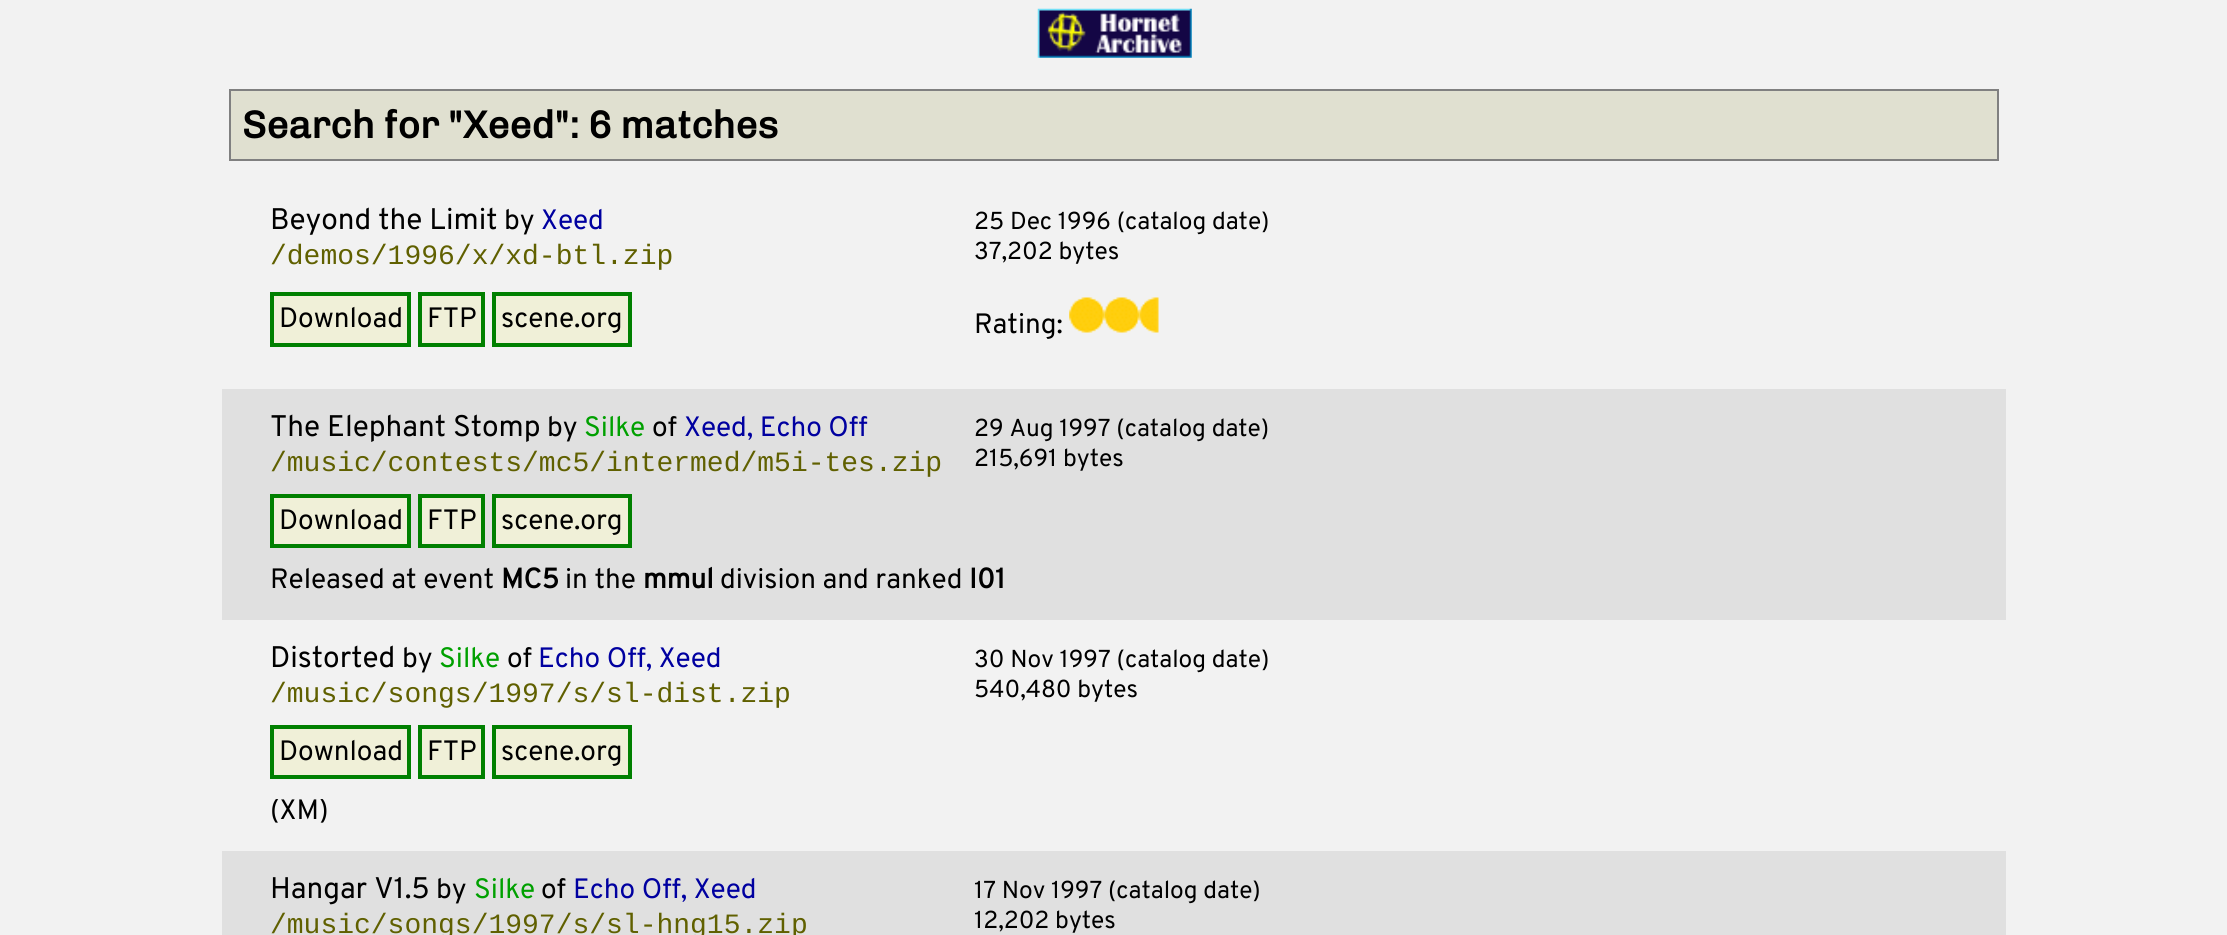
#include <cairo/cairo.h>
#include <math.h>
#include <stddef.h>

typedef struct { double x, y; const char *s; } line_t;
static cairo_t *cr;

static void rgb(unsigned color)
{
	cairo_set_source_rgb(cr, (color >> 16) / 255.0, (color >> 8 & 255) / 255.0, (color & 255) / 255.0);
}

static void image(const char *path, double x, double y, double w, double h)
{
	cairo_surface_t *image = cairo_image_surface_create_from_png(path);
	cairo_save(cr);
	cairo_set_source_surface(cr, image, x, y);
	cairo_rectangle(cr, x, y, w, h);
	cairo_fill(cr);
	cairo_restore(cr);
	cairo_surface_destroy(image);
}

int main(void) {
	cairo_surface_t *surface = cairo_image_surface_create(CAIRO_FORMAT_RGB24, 2227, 935);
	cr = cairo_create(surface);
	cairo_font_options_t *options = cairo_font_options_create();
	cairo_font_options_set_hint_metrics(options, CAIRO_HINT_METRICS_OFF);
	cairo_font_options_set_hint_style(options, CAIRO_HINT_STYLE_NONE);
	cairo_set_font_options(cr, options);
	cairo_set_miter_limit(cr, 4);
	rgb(0xf2f2f2);
	cairo_paint(cr);
	image("img/1.png", 1037, 8, 155, 50);
	rgb(0xe0e0d0);
	cairo_rectangle(cr, 230, 90, 1768, 70);
	cairo_fill_preserve(cr);
	rgb(0x808080);
	cairo_stroke(cr);
	rgb(0xf0f0d8);
	cairo_rectangle(cr, 272, 294, 137, 51);
	cairo_fill_preserve(cr);
	rgb(0x008000);
	cairo_set_line_width(cr, 4);
	cairo_stroke(cr);
	rgb(0xf0f0d8);
	cairo_rectangle(cr, 420, 294, 63, 51);
	cairo_fill_preserve(cr);
	rgb(0x008000);
	cairo_stroke(cr);
	rgb(0xf0f0d8);
	cairo_rectangle(cr, 494, 294, 136, 51);
	cairo_fill_preserve(cr);
	rgb(0x008000);
	cairo_stroke(cr);
	image("img/2.png", 1069, 297, 36, 36);
	image("img/3.png", 1104, 297, 36, 36);
	image("img/4.png", 1139, 297, 20, 36);
	rgb(0xe0e0e0);
	cairo_rectangle(cr, 222, 389, 1784, 231);
	cairo_fill(cr);
	rgb(0xf0f0d8);
	cairo_rectangle(cr, 272, 496, 137, 50);
	cairo_fill_preserve(cr);
	rgb(0x008000);
	cairo_stroke(cr);
	rgb(0xf0f0d8);
	cairo_rectangle(cr, 420, 496, 63, 50);
	cairo_fill_preserve(cr);
	rgb(0x008000);
	cairo_stroke(cr);
	rgb(0xf0f0d8);
	cairo_rectangle(cr, 494, 496, 136, 50);
	cairo_fill_preserve(cr);
	rgb(0x008000);
	cairo_stroke(cr);
	rgb(0xf0f0d8);
	cairo_rectangle(cr, 272, 727, 137, 50);
	cairo_fill_preserve(cr);
	rgb(0x008000);
	cairo_stroke(cr);
	rgb(0xf0f0d8);
	cairo_rectangle(cr, 420, 727, 63, 50);
	cairo_fill_preserve(cr);
	rgb(0x008000);
	cairo_stroke(cr);
	rgb(0xf0f0d8);
	cairo_rectangle(cr, 494, 727, 136, 50);
	cairo_fill_preserve(cr);
	rgb(0x008000);
	cairo_stroke(cr);
	rgb(0xe0e0e0);
	cairo_rectangle(cr, 222, 851, 1784, 84);
	cairo_fill(cr);
	cairo_select_font_face(cr, "Chivo", CAIRO_FONT_SLANT_NORMAL, CAIRO_FONT_WEIGHT_BOLD);
	cairo_set_font_size(cr, 38.5);
	rgb(0x000000);
	cairo_move_to(cr, 242, 138);
	cairo_show_text(cr, "Search for \"Xeed\": 6 matches");
	cairo_select_font_face(cr, "Overpass", CAIRO_FONT_SLANT_NORMAL, CAIRO_FONT_WEIGHT_NORMAL);
	cairo_set_font_size(cr, 29.75);
	cairo_move_to(cr, 270, 229);
	cairo_show_text(cr, "Beyond the Limit");
	cairo_set_font_size(cr, 28);
	cairo_move_to(cr, 504, 229);
	cairo_show_text(cr, "by");
	rgb(0x0000a0);
	cairo_move_to(cr, 541, 229);
	cairo_show_text(cr, "Xeed");
	cairo_select_font_face(cr, "Liberation Mono", CAIRO_FONT_SLANT_NORMAL, CAIRO_FONT_WEIGHT_NORMAL);
	rgb(0x606000);
	cairo_move_to(cr, 270, 264);
	cairo_show_text(cr, "/demos/1996/x/xd-btl.zip");
	cairo_select_font_face(cr, "Overpass", CAIRO_FONT_SLANT_NORMAL, CAIRO_FONT_WEIGHT_NORMAL);
	cairo_set_font_size(cr, 24.5);
	rgb(0x000000);
	cairo_move_to(cr, 974, 229);
	cairo_show_text(cr, "25 Dec 1996 (catalog date)");
	cairo_move_to(cr, 974, 259);
	cairo_show_text(cr, "37,202 bytes");
	cairo_set_font_size(cr, 28);
	{
		static const line_t items[] = {
			{279, 327, "Download"},
			{427, 327, "FTP"},
			{501, 327, "scene.org"},
			{974, 333, "Rating:"},
		};
		for (size_t i = 0; i < sizeof items / sizeof *items; i++) {
			cairo_move_to(cr, items[i].x, items[i].y);
			cairo_show_text(cr, items[i].s);
		}
	}
	cairo_set_font_size(cr, 29.75);
	cairo_move_to(cr, 270, 436);
	cairo_show_text(cr, "The Elephant Stomp");
	cairo_set_font_size(cr, 28);
	cairo_move_to(cr, 547, 436);
	cairo_show_text(cr, "by");
	rgb(0x00a000);
	cairo_move_to(cr, 584, 436);
	cairo_show_text(cr, "Silke");
	rgb(0x000000);
	cairo_move_to(cr, 652, 436);
	cairo_show_text(cr, "of");
	rgb(0x0000a0);
	cairo_move_to(cr, 684, 436);
	cairo_show_text(cr, "Xeed, Echo Off");
	cairo_select_font_face(cr, "Liberation Mono", CAIRO_FONT_SLANT_NORMAL, CAIRO_FONT_WEIGHT_NORMAL);
	rgb(0x606000);
	cairo_move_to(cr, 270, 471);
	cairo_show_text(cr, "/music/contests/mc5/intermed/m5i-tes.zip");
	cairo_select_font_face(cr, "Overpass", CAIRO_FONT_SLANT_NORMAL, CAIRO_FONT_WEIGHT_NORMAL);
	cairo_set_font_size(cr, 24.5);
	rgb(0x000000);
	cairo_move_to(cr, 974, 436);
	cairo_show_text(cr, "29 Aug 1997 (catalog date)");
	cairo_move_to(cr, 974, 466);
	cairo_show_text(cr, "215,691 bytes");
	cairo_set_font_size(cr, 28);
	{
		static const line_t items[] = {
			{279, 529, "Download"},
			{427, 529, "FTP"},
			{501, 529, "scene.org"},
			{270, 588, "Released at event"},
		};
		for (size_t i = 0; i < sizeof items / sizeof *items; i++) {
			cairo_move_to(cr, items[i].x, items[i].y);
			cairo_show_text(cr, items[i].s);
		}
	}
	cairo_select_font_face(cr, "Overpass", CAIRO_FONT_SLANT_NORMAL, CAIRO_FONT_WEIGHT_BOLD);
	cairo_move_to(cr, 501, 588);
	cairo_show_text(cr, "MC5");
	cairo_select_font_face(cr, "Overpass", CAIRO_FONT_SLANT_NORMAL, CAIRO_FONT_WEIGHT_NORMAL);
	cairo_move_to(cr, 565, 588);
	cairo_show_text(cr, "in the");
	cairo_select_font_face(cr, "Overpass", CAIRO_FONT_SLANT_NORMAL, CAIRO_FONT_WEIGHT_BOLD);
	cairo_move_to(cr, 643, 588);
	cairo_show_text(cr, "mmul");
	cairo_select_font_face(cr, "Overpass", CAIRO_FONT_SLANT_NORMAL, CAIRO_FONT_WEIGHT_NORMAL);
	cairo_move_to(cr, 720, 588);
	cairo_show_text(cr, "division and ranked");
	cairo_select_font_face(cr, "Overpass", CAIRO_FONT_SLANT_NORMAL, CAIRO_FONT_WEIGHT_BOLD);
	cairo_move_to(cr, 969, 588);
	cairo_show_text(cr, "I01");
	cairo_select_font_face(cr, "Overpass", CAIRO_FONT_SLANT_NORMAL, CAIRO_FONT_WEIGHT_NORMAL);
	cairo_set_font_size(cr, 29.75);
	cairo_move_to(cr, 270, 667);
	cairo_show_text(cr, "Distorted");
	cairo_set_font_size(cr, 28);
	cairo_move_to(cr, 402, 667);
	cairo_show_text(cr, "by");
	rgb(0x00a000);
	cairo_move_to(cr, 439, 667);
	cairo_show_text(cr, "Silke");
	rgb(0x000000);
	cairo_move_to(cr, 507, 667);
	cairo_show_text(cr, "of");
	rgb(0x0000a0);
	cairo_move_to(cr, 538, 667);
	cairo_show_text(cr, "Echo Off, Xeed");
	cairo_select_font_face(cr, "Liberation Mono", CAIRO_FONT_SLANT_NORMAL, CAIRO_FONT_WEIGHT_NORMAL);
	rgb(0x606000);
	cairo_move_to(cr, 270, 702);
	cairo_show_text(cr, "/music/songs/1997/s/sl-dist.zip");
	cairo_select_font_face(cr, "Overpass", CAIRO_FONT_SLANT_NORMAL, CAIRO_FONT_WEIGHT_NORMAL);
	cairo_set_font_size(cr, 24.5);
	rgb(0x000000);
	cairo_move_to(cr, 974, 667);
	cairo_show_text(cr, "30 Nov 1997 (catalog date)");
	cairo_move_to(cr, 974, 697);
	cairo_show_text(cr, "540,480 bytes");
	cairo_set_font_size(cr, 28);
	{
		static const line_t items[] = {
			{279, 760, "Download"},
			{427, 760, "FTP"},
			{501, 760, "scene.org"},
			{270, 819, "(XM)"},
		};
		for (size_t i = 0; i < sizeof items / sizeof *items; i++) {
			cairo_move_to(cr, items[i].x, items[i].y);
			cairo_show_text(cr, items[i].s);
		}
	}
	cairo_set_font_size(cr, 29.75);
	cairo_move_to(cr, 270, 898);
	cairo_show_text(cr, "Hangar V1.5");
	cairo_set_font_size(cr, 28);
	cairo_move_to(cr, 436, 898);
	cairo_show_text(cr, "by");
	rgb(0x00a000);
	cairo_move_to(cr, 474, 898);
	cairo_show_text(cr, "Silke");
	rgb(0x000000);
	cairo_move_to(cr, 541, 898);
	cairo_show_text(cr, "of");
	rgb(0x0000a0);
	cairo_move_to(cr, 573, 898);
	cairo_show_text(cr, "Echo Off, Xeed");
	cairo_select_font_face(cr, "Liberation Mono", CAIRO_FONT_SLANT_NORMAL, CAIRO_FONT_WEIGHT_NORMAL);
	rgb(0x606000);
	cairo_move_to(cr, 270, 933);
	cairo_show_text(cr, "/music/songs/1997/s/sl-hng15.zip");
	cairo_select_font_face(cr, "Overpass", CAIRO_FONT_SLANT_NORMAL, CAIRO_FONT_WEIGHT_NORMAL);
	cairo_set_font_size(cr, 24.5);
	rgb(0x000000);
	cairo_move_to(cr, 974, 898);
	cairo_show_text(cr, "17 Nov 1997 (catalog date)");
	cairo_move_to(cr, 974, 928);
	cairo_show_text(cr, "12,202 bytes");
	cairo_surface_write_to_png(surface, "page.png");
	cairo_font_options_destroy(options);
	cairo_destroy(cr);
	cairo_surface_destroy(surface);
	return 0;
}
